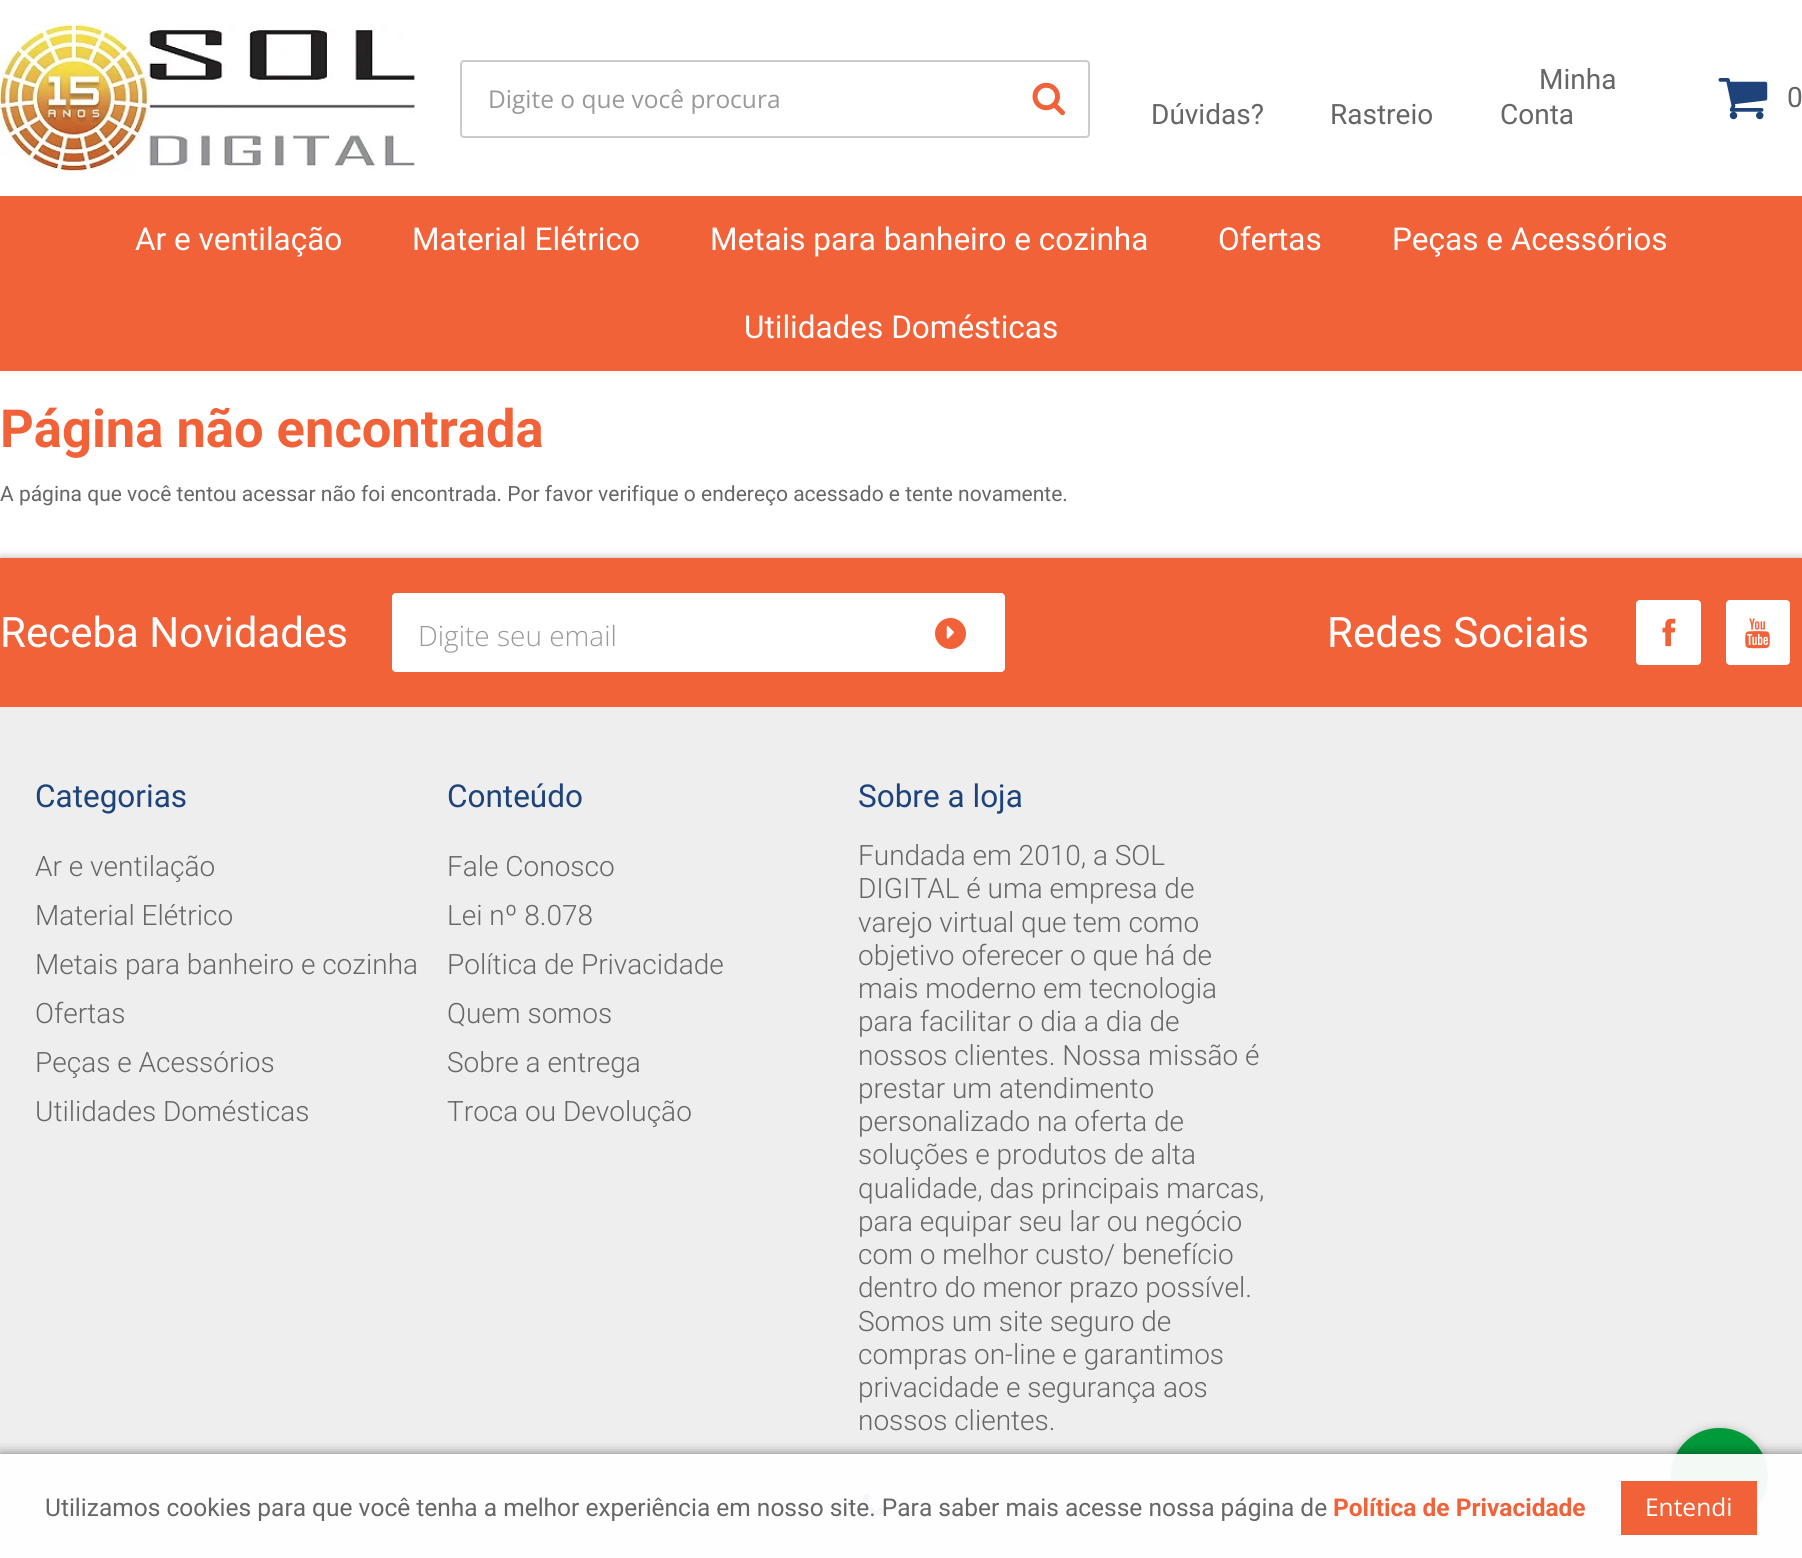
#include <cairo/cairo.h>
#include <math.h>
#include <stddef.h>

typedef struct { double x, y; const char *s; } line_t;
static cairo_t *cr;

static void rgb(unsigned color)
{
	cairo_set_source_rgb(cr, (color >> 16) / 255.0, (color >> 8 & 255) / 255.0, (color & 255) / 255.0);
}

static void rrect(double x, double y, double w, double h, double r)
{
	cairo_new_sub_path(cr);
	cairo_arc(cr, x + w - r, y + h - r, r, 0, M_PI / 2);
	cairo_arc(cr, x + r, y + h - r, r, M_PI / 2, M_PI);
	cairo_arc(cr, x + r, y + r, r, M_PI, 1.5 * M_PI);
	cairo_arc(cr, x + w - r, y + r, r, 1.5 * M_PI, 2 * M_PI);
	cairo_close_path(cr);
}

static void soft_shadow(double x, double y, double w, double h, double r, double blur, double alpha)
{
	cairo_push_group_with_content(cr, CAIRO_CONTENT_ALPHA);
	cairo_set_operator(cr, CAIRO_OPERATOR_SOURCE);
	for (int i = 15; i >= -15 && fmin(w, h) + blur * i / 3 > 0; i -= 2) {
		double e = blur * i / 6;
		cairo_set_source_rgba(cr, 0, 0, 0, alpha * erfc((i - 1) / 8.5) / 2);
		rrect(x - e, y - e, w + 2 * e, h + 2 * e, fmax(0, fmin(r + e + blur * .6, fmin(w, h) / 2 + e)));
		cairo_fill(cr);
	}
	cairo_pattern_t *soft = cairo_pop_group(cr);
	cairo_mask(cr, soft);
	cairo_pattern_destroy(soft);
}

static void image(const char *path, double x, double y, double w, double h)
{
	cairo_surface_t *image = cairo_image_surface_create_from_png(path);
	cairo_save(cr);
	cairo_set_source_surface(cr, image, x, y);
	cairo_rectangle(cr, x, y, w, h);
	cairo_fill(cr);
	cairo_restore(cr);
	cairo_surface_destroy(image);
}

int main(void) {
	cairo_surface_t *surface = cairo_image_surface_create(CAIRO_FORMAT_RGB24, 1802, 1558);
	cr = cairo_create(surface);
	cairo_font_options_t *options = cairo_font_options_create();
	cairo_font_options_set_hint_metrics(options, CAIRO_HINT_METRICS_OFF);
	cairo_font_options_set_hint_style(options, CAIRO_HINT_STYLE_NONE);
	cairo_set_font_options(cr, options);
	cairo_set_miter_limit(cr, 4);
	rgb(0xffffff);
	cairo_paint(cr);
	image("img/1.png", 0, 23, 416, 150);
	rrect(461, 61, 628, 76, 3);
	rgb(0xcccccc);
	cairo_stroke(cr);
	image("img/2.png", 1032, 82, 33, 34);
	image("img/3.png", 1718, 78, 50, 42);
	rgb(0xf16239);
	cairo_rectangle(cr, 0, 196, 1802, 175);
	cairo_fill(cr);
	rgb(0x000000);
	soft_shadow(0, 558, 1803, 149, 0, 4.5, 0.3);
	rgb(0xf16239);
	cairo_rectangle(cr, 0, 558, 1802, 149);
	cairo_fill(cr);
	rgb(0xffffff);
	rrect(392, 593, 613, 79, 4);
	cairo_fill(cr);
	rgb(0xf16239);
	cairo_arc(cr, 950.5, 633.5, 15.5, 0, 2 * M_PI);
	cairo_fill(cr);
	image("img/4.png", 946, 625, 8, 14);
	rgb(0xffffff);
	rrect(1636, 600, 65, 65, 4);
	cairo_fill(cr);
	image("img/5.png", 1662, 618, 14, 29);
	rrect(1726, 600, 64, 65, 4);
	cairo_fill(cr);
	image("img/6.png", 1745, 618, 25, 31);
	rgb(0xeeeeee);
	cairo_rectangle(cr, 0, 707, 1802, 851);
	cairo_fill(cr);
	image("img/7.png", 862, 1493, 23, 23);
	rgb(0x000000);
	soft_shadow(1671, 1428, 97, 96, 48, 4.5, 0.2);
	rgb(0x009a3a);
	rrect(1671, 1428, 97, 96, 48);
	cairo_fill(cr);
	cairo_save(cr);
	cairo_set_fill_rule(cr, CAIRO_FILL_RULE_EVEN_ODD);
	cairo_new_path(cr);
	cairo_move_to(cr, 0, 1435);
	cairo_line_to(cr, 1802, 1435);
	cairo_line_to(cr, 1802, 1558);
	cairo_line_to(cr, 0, 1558);
	cairo_close_path(cr);
	cairo_move_to(cr, 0, 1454);
	cairo_line_to(cr, 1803, 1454);
	cairo_line_to(cr, 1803, 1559);
	cairo_line_to(cr, 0, 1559);
	cairo_close_path(cr);
	cairo_clip(cr);
	rgb(0x000000);
	soft_shadow(0, 1454, 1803, 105, 0, 6, 0.5);
	cairo_restore(cr);
	cairo_set_source_rgba(cr, 1, 1, 1, 0.95);
	cairo_rectangle(cr, 0, 1454, 1802, 104);
	cairo_fill(cr);
	rgb(0xf16239);
	cairo_rectangle(cr, 1621, 1481, 136, 54);
	cairo_fill(cr);
	cairo_select_font_face(cr, "Open Sans", CAIRO_FONT_SLANT_NORMAL, CAIRO_FONT_WEIGHT_NORMAL);
	cairo_set_font_size(cr, 24.5);
	rgb(0x999999);
	cairo_move_to(cr, 488, 108);
	cairo_show_text(cr, "Digite o que você procura");
	cairo_select_font_face(cr, "Roboto", CAIRO_FONT_SLANT_NORMAL, CAIRO_FONT_WEIGHT_NORMAL);
	cairo_set_font_size(cr, 28);
	rgb(0x666666);
	{
		static const line_t items[] = {
			{1151, 124, "Dúvidas?"},
			{1330, 124, "Rastreio"},
			{1539, 89, "Minha"},
			{1500, 124, "Conta"},
			{1787, 107, "0"},
		};
		for (size_t i = 0; i < sizeof items / sizeof *items; i++) {
			cairo_move_to(cr, items[i].x, items[i].y);
			cairo_show_text(cr, items[i].s);
		}
	}
	cairo_set_font_size(cr, 31.5);
	rgb(0xffffff);
	{
		static const line_t items[] = {
			{135, 250, "Ar e ventilação"},
			{412, 250, "Material Elétrico"},
			{710, 250, "Metais para banheiro e cozinha"},
			{1218, 250, "Ofertas"},
			{1392, 250, "Peças e Acessórios"},
			{744, 338, "Utilidades Domésticas"},
		};
		for (size_t i = 0; i < sizeof items / sizeof *items; i++) {
			cairo_move_to(cr, items[i].x, items[i].y);
			cairo_show_text(cr, items[i].s);
		}
	}
	cairo_select_font_face(cr, "Roboto", CAIRO_FONT_SLANT_NORMAL, CAIRO_FONT_WEIGHT_BOLD);
	cairo_set_font_size(cr, 52.5);
	rgb(0xf16239);
	cairo_move_to(cr, 0, 447);
	cairo_show_text(cr, "Página não encontrada");
	cairo_select_font_face(cr, "Roboto", CAIRO_FONT_SLANT_NORMAL, CAIRO_FONT_WEIGHT_NORMAL);
	cairo_set_font_size(cr, 21);
	rgb(0x666666);
	cairo_move_to(cr, 0, 501);
	cairo_show_text(cr, "A página que você tentou acessar não foi encontrada. Por favor verifique o endereço acessado e tente novamente.");
	cairo_set_font_size(cr, 42);
	rgb(0xffffff);
	cairo_move_to(cr, 0, 647);
	cairo_show_text(cr, "Receba Novidades");
	cairo_select_font_face(cr, "Open Sans Light", CAIRO_FONT_SLANT_NORMAL, CAIRO_FONT_WEIGHT_NORMAL);
	cairo_set_font_size(cr, 28);
	rgb(0x999999);
	cairo_move_to(cr, 418, 646);
	cairo_show_text(cr, "Digite seu email");
	cairo_select_font_face(cr, "Roboto", CAIRO_FONT_SLANT_NORMAL, CAIRO_FONT_WEIGHT_NORMAL);
	cairo_set_font_size(cr, 42);
	rgb(0xffffff);
	cairo_move_to(cr, 1327, 647);
	cairo_show_text(cr, "Redes Sociais");
	cairo_set_font_size(cr, 31.5);
	rgb(0x1d437a);
	cairo_move_to(cr, 35, 807);
	cairo_show_text(cr, "Categorias");
	cairo_select_font_face(cr, "Roboto Light", CAIRO_FONT_SLANT_NORMAL, CAIRO_FONT_WEIGHT_NORMAL);
	cairo_set_font_size(cr, 28);
	rgb(0x666666);
	{
		static const line_t items[] = {
			{35, 876, "Ar e ventilação"},
			{35, 925, "Material Elétrico"},
			{35, 974, "Metais para banheiro e cozinha"},
			{35, 1023, "Ofertas"},
			{35, 1072, "Peças e Acessórios"},
			{35, 1121, "Utilidades Domésticas"},
		};
		for (size_t i = 0; i < sizeof items / sizeof *items; i++) {
			cairo_move_to(cr, items[i].x, items[i].y);
			cairo_show_text(cr, items[i].s);
		}
	}
	cairo_select_font_face(cr, "Roboto", CAIRO_FONT_SLANT_NORMAL, CAIRO_FONT_WEIGHT_NORMAL);
	cairo_set_font_size(cr, 31.5);
	rgb(0x1d437a);
	cairo_move_to(cr, 447, 807);
	cairo_show_text(cr, "Conteúdo");
	cairo_select_font_face(cr, "Roboto Light", CAIRO_FONT_SLANT_NORMAL, CAIRO_FONT_WEIGHT_NORMAL);
	cairo_set_font_size(cr, 28);
	rgb(0x666666);
	{
		static const line_t items[] = {
			{447, 876, "Fale Conosco"},
			{447, 925, "Lei nº 8.078"},
			{447, 974, "Política de Privacidade"},
			{447, 1023, "Quem somos"},
			{447, 1072, "Sobre a entrega"},
			{447, 1121, "Troca ou Devolução"},
		};
		for (size_t i = 0; i < sizeof items / sizeof *items; i++) {
			cairo_move_to(cr, items[i].x, items[i].y);
			cairo_show_text(cr, items[i].s);
		}
	}
	cairo_select_font_face(cr, "Roboto", CAIRO_FONT_SLANT_NORMAL, CAIRO_FONT_WEIGHT_NORMAL);
	cairo_set_font_size(cr, 31.5);
	rgb(0x1d437a);
	cairo_move_to(cr, 858, 807);
	cairo_show_text(cr, "Sobre a loja");
	cairo_select_font_face(cr, "Roboto Light", CAIRO_FONT_SLANT_NORMAL, CAIRO_FONT_WEIGHT_NORMAL);
	cairo_set_font_size(cr, 28);
	rgb(0x666666);
	{
		static const line_t items[] = {
			{858, 865, "Fundada em 2010, a SOL"},
			{858, 898, "DIGITAL é uma empresa de"},
			{858, 932, "varejo virtual que tem como"},
			{858, 965, "objetivo oferecer o que há de"},
			{858, 998, "mais moderno em tecnologia"},
			{858, 1031, "para facilitar o dia a dia de"},
			{858, 1065, "nossos clientes. Nossa missão é"},
			{858, 1098, "prestar um atendimento"},
			{858, 1131, "personalizado na oferta de"},
			{858, 1164, "soluções e produtos de alta"},
			{858, 1198, "qualidade, das principais marcas,"},
			{858, 1231, "para equipar seu lar ou negócio"},
			{858, 1264, "com o melhor custo/ benefício"},
			{858, 1297, "dentro do menor prazo possível."},
			{858, 1331, "Somos um site seguro de"},
			{858, 1364, "compras on-line e garantimos"},
			{858, 1397, "privacidade e segurança aos"},
			{858, 1430, "nossos clientes."},
		};
		for (size_t i = 0; i < sizeof items / sizeof *items; i++) {
			cairo_move_to(cr, items[i].x, items[i].y);
			cairo_show_text(cr, items[i].s);
		}
	}
	cairo_select_font_face(cr, "Roboto", CAIRO_FONT_SLANT_NORMAL, CAIRO_FONT_WEIGHT_NORMAL);
	cairo_set_font_size(cr, 24.5);
	cairo_move_to(cr, 45, 1516);
	cairo_show_text(cr, "Utilizamos cookies para que você tenha a melhor experiência em nosso site. Para saber mais acesse nossa página de");
	cairo_select_font_face(cr, "Roboto", CAIRO_FONT_SLANT_NORMAL, CAIRO_FONT_WEIGHT_BOLD);
	rgb(0xf16239);
	cairo_move_to(cr, 1333, 1516);
	cairo_show_text(cr, "Política de Privacidade");
	cairo_select_font_face(cr, "Open Sans", CAIRO_FONT_SLANT_NORMAL, CAIRO_FONT_WEIGHT_NORMAL);
	rgb(0xffffff);
	cairo_move_to(cr, 1645, 1516);
	cairo_show_text(cr, "Entendi");
	cairo_surface_write_to_png(surface, "page.png");
	cairo_font_options_destroy(options);
	cairo_destroy(cr);
	cairo_surface_destroy(surface);
	return 0;
}
